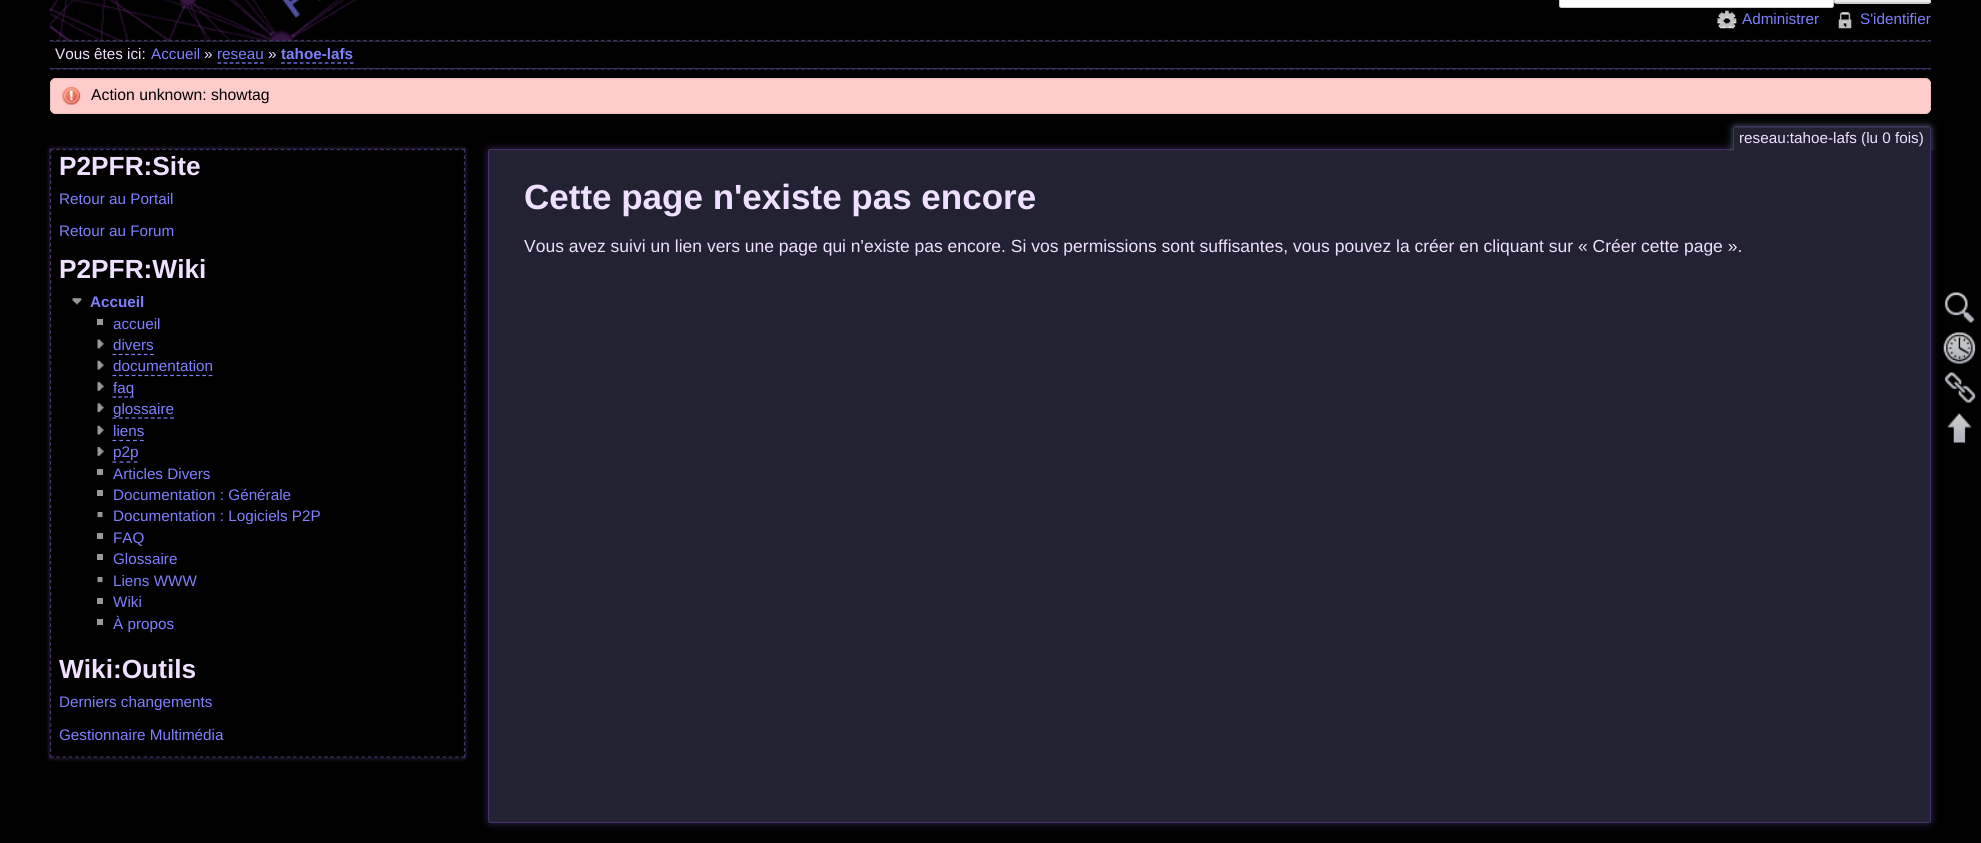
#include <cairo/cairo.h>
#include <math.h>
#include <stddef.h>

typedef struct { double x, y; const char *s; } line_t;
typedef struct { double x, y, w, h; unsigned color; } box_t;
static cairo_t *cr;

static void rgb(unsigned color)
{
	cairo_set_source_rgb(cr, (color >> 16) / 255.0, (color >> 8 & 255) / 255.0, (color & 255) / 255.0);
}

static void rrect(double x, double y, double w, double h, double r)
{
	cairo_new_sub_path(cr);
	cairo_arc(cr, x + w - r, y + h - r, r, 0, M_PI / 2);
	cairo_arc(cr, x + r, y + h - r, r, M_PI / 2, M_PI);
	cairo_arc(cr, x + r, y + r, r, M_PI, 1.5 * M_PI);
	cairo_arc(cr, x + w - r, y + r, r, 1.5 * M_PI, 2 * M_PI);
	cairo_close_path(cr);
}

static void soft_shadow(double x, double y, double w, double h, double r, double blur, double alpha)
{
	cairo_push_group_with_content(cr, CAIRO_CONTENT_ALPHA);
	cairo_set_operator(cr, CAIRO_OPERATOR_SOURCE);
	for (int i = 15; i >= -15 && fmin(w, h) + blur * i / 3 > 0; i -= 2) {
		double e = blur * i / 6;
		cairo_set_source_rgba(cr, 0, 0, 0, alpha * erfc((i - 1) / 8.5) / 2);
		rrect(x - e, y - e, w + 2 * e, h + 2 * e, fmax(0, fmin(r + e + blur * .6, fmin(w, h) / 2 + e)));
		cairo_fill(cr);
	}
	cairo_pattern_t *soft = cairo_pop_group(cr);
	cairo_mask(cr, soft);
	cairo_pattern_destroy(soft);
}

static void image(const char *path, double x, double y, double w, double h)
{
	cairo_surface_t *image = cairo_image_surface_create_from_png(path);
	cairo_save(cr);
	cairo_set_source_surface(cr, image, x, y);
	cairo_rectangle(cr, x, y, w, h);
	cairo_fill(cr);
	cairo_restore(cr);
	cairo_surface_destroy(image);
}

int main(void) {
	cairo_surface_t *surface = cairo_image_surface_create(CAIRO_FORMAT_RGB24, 1981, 843);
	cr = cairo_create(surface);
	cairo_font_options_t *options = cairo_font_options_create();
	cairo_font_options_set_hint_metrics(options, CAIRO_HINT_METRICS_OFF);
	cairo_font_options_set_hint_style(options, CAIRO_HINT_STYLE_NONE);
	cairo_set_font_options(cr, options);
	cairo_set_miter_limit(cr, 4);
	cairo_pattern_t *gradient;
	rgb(0x000000);
	cairo_paint(cr);
	image("img/1.png", 50, 0, 307, 41);
	rgb(0xffffff);
	rrect(1559.5, -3.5, 274, 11, 2);
	cairo_fill_preserve(cr);
	rgb(0xcccccc);
	cairo_set_line_width(cr, 1);
	cairo_stroke(cr);
	gradient = cairo_pattern_create_linear(1883, -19, 1883, 2.5);
	cairo_pattern_add_color_stop_rgba(gradient, 0, 1, 1, 1, 1);
	cairo_pattern_add_color_stop_rgba(gradient, 0.3, 0.957, 0.957, 0.957, 1);
	cairo_pattern_add_color_stop_rgba(gradient, 0.99, 0.933, 0.933, 0.933, 1);
	cairo_pattern_add_color_stop_rgba(gradient, 0.99, 0.8, 0.8, 0.8, 1);
	cairo_set_source(cr, gradient);
	cairo_pattern_destroy(gradient);
	cairo_rectangle(cr, 1834, 0, 97, 3);
	cairo_fill(cr);
	rrect(1834.5, -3.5, 96, 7, 2);
	rgb(0xcccccc);
	cairo_stroke(cr);
	image("img/2.png", 1717, 10, 20, 19);
	image("img/3.png", 1838, 11, 14, 18);
	cairo_new_path(cr);
	cairo_move_to(cr, 50, 40.5);
	cairo_line_to(cr, 1931, 40.5);
	rgb(0x443366);
	cairo_set_line_width(cr, 1.2);
	cairo_set_dash(cr, (double[]){3.75, 2.51}, 2, 0);
	cairo_stroke(cr);
	cairo_new_path(cr);
	cairo_move_to(cr, 50, 69.5);
	cairo_line_to(cr, 1931, 69.5);
	rgb(0x222233);
	cairo_stroke(cr);
	cairo_rectangle(cr, 50, 41, 1881, 1);
	cairo_fill(cr);
	rgb(0x443366);
	cairo_rectangle(cr, 50, 68, 1881, 1);
	cairo_fill(cr);
	cairo_new_path(cr);
	cairo_move_to(cr, 217.5, 63);
	cairo_line_to(cr, 264, 63);
	rgb(0x8080ff);
	cairo_set_dash(cr, (double[]){3.75, 2.33}, 2, 0);
	cairo_stroke(cr);
	cairo_new_path(cr);
	cairo_move_to(cr, 281, 63);
	cairo_line_to(cr, 354, 63);
	cairo_set_dash(cr, (double[]){3.75, 2.5}, 2, 0);
	cairo_stroke(cr);
	rgb(0xffcccc);
	rrect(50, 78, 1881, 36, 6);
	cairo_fill(cr);
	image("img/4.png", 62, 86, 19, 19);
	rrect(50.5, 78.5, 1880, 35, 5.5);
	rgb(0xeebbbb);
	cairo_set_line_width(cr, 1);
	cairo_set_dash(cr, NULL, 0, 0);
	cairo_stroke(cr);
	cairo_save(cr);
	cairo_set_fill_rule(cr, CAIRO_FILL_RULE_EVEN_ODD);
	cairo_new_path(cr);
	cairo_move_to(cr, 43, 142);
	cairo_line_to(cr, 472, 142);
	cairo_line_to(cr, 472, 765);
	cairo_line_to(cr, 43, 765);
	cairo_close_path(cr);
	cairo_move_to(cr, 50, 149);
	cairo_line_to(cr, 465, 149);
	cairo_line_to(cr, 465, 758);
	cairo_line_to(cr, 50, 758);
	cairo_close_path(cr);
	cairo_clip(cr);
	rgb(0x443366);
	soft_shadow(50, 149, 415, 609, 0, 2, 1);
	cairo_restore(cr);
	cairo_new_path(cr);
	cairo_move_to(cr, 50, 149.5);
	cairo_line_to(cr, 465, 149.5);
	rgb(0x443366);
	cairo_set_line_width(cr, 1.2);
	cairo_set_dash(cr, (double[]){3.75, 2.48}, 2, 0);
	cairo_stroke(cr);
	cairo_new_path(cr);
	cairo_move_to(cr, 464.5, 149);
	cairo_line_to(cr, 464.5, 757.5);
	cairo_set_dash(cr, (double[]){3.75, 2.49}, 2, 0);
	cairo_stroke(cr);
	cairo_new_path(cr);
	cairo_move_to(cr, 50, 757);
	cairo_line_to(cr, 465, 757);
	cairo_set_dash(cr, (double[]){3.75, 2.48}, 2, 0);
	cairo_stroke(cr);
	cairo_new_path(cr);
	cairo_move_to(cr, 50.5, 149);
	cairo_line_to(cr, 50.5, 757.5);
	cairo_set_dash(cr, (double[]){3.75, 2.49}, 2, 0);
	cairo_stroke(cr);
	image("img/5.png", 72, 298, 10, 7);
	rgb(0x999999);
	cairo_rectangle(cr, 97, 319, 6, 6);
	cairo_fill(cr);
	image("img/6.png", 97, 339, 7, 10);
	cairo_new_path(cr);
	cairo_move_to(cr, 112.5, 354.5);
	cairo_line_to(cr, 154, 354.5);
	rgb(0x8080ff);
	cairo_set_dash(cr, (double[]){3.75, 2.5}, 2, 0);
	cairo_stroke(cr);
	image("img/7.png", 97, 360, 7, 10);
	cairo_new_path(cr);
	cairo_move_to(cr, 112.5, 375.5);
	cairo_line_to(cr, 212.5, 375.5);
	cairo_set_dash(cr, (double[]){3.75, 2.66}, 2, 0);
	cairo_stroke(cr);
	image("img/8.png", 97, 381, 7, 10);
	cairo_new_path(cr);
	cairo_move_to(cr, 112.5, 397);
	cairo_line_to(cr, 134, 397);
	cairo_set_dash(cr, (double[]){3.75, 2.09}, 2, 0);
	cairo_stroke(cr);
	image("img/9.png", 97, 403, 7, 10);
	cairo_new_path(cr);
	cairo_move_to(cr, 112.5, 418);
	cairo_line_to(cr, 174, 418);
	cairo_set_dash(cr, (double[]){3.75, 2.64}, 2, 0);
	cairo_stroke(cr);
	image("img/7.png", 97, 425, 7, 10);
	cairo_new_path(cr);
	cairo_move_to(cr, 112.5, 440.5);
	cairo_line_to(cr, 144, 440.5);
	cairo_set_dash(cr, (double[]){3.75, 3.12}, 2, 0);
	cairo_stroke(cr);
	image("img/8.png", 97, 446, 7, 10);
	cairo_new_path(cr);
	cairo_move_to(cr, 112.5, 462);
	cairo_line_to(cr, 137.5, 462);
	cairo_set_dash(cr, (double[]){3.75, 3.34}, 2, 0);
	cairo_stroke(cr);
	rgb(0x999999);
	cairo_rectangle(cr, 97, 469, 6, 6);
	cairo_fill(cr);
	cairo_rectangle(cr, 97, 490, 6, 6);
	cairo_fill(cr);
	image("img/10.png", 97, 512, 6, 6);
	cairo_rectangle(cr, 97, 533, 6, 6);
	cairo_fill(cr);
	cairo_rectangle(cr, 97, 554, 6, 6);
	cairo_fill(cr);
	image("img/10.png", 97, 577, 6, 6);
	cairo_rectangle(cr, 97, 598, 6, 6);
	cairo_fill(cr);
	cairo_rectangle(cr, 97, 619, 6, 6);
	cairo_fill(cr);
	rgb(0x332255);
	soft_shadow(488, 149, 1443, 674, 2.5, 4.5, 1);
	rgb(0x222233);
	rrect(488.5, 149.5, 1442, 673, 2);
	cairo_fill_preserve(cr);
	rgb(0x443366);
	cairo_set_line_width(cr, 1);
	cairo_set_dash(cr, NULL, 0, 0);
	cairo_stroke(cr);
	cairo_save(cr);
	cairo_rectangle(cr, 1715, 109, 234, 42);
	cairo_clip(cr);
	rgb(0x445566);
	soft_shadow(1733, 126, 198, 25, 2.5, 4, 1);
	cairo_restore(cr);
	rgb(0x222233);
	cairo_new_path(cr);
	cairo_move_to(cr, 1735, 128);
	cairo_line_to(cr, 1929, 128);
	cairo_curve_to(cr, 1929.5, 128, 1930, 128.5, 1930, 129);
	cairo_line_to(cr, 1930, 151);
	cairo_line_to(cr, 1734, 151);
	cairo_line_to(cr, 1734, 129);
	cairo_curve_to(cr, 1734, 128.5, 1734.5, 128, 1735, 128);
	cairo_close_path(cr);
	cairo_fill(cr);
	{
		static const box_t items[] = {
			{1734, 126, 196, 1, 0x443366},
			{1930, 128, 1, 23, 0x443366},
			{1733, 128, 1, 23, 0x443366},
		};
		for (size_t i = 0; i < sizeof items / sizeof *items; i++) {
			rgb(items[i].color);
			cairo_rectangle(cr, items[i].x, items[i].y, items[i].w, items[i].h);
			cairo_fill(cr);
		}
	}
	image("img/11.png", 1944, 292, 31, 31);
	image("img/12.png", 1943, 332, 33, 32);
	image("img/13.png", 1944, 372, 32, 31);
	image("img/14.png", 1947, 413, 25, 30);
	cairo_select_font_face(cr, "Liberation Sans", CAIRO_FONT_SLANT_NORMAL, CAIRO_FONT_WEIGHT_NORMAL);
	cairo_set_font_size(cr, 15.25);
	rgb(0x8080ff);
	cairo_move_to(cr, 1742, 24);
	cairo_show_text(cr, "Administrer");
	cairo_move_to(cr, 1860, 24);
	cairo_show_text(cr, "S'identifier");
	rgb(0xf0e0ff);
	cairo_move_to(cr, 55, 59);
	cairo_show_text(cr, "Vous êtes ici:");
	rgb(0x8080ff);
	cairo_move_to(cr, 151, 59);
	cairo_show_text(cr, "Accueil");
	rgb(0xf0e0ff);
	cairo_move_to(cr, 204, 59);
	cairo_show_text(cr, "»");
	rgb(0x8080ff);
	cairo_move_to(cr, 217, 59);
	cairo_show_text(cr, "reseau");
	rgb(0xf0e0ff);
	cairo_move_to(cr, 268, 59);
	cairo_show_text(cr, "»");
	cairo_select_font_face(cr, "Liberation Sans", CAIRO_FONT_SLANT_NORMAL, CAIRO_FONT_WEIGHT_BOLD);
	rgb(0x8080ff);
	cairo_move_to(cr, 281, 59);
	cairo_show_text(cr, "tahoe-lafs");
	cairo_select_font_face(cr, "Liberation Sans", CAIRO_FONT_SLANT_NORMAL, CAIRO_FONT_WEIGHT_NORMAL);
	cairo_set_font_size(cr, 15.75);
	rgb(0x000000);
	cairo_move_to(cr, 91, 100);
	cairo_show_text(cr, "Action unknown: showtag");
	cairo_select_font_face(cr, "Liberation Sans", CAIRO_FONT_SLANT_NORMAL, CAIRO_FONT_WEIGHT_BOLD);
	cairo_set_font_size(cr, 26.25);
	rgb(0xf0e0ff);
	cairo_move_to(cr, 59, 175);
	cairo_show_text(cr, "P2PFR:Site");
	cairo_select_font_face(cr, "Liberation Sans", CAIRO_FONT_SLANT_NORMAL, CAIRO_FONT_WEIGHT_NORMAL);
	cairo_set_font_size(cr, 15.25);
	rgb(0x8080ff);
	cairo_move_to(cr, 59, 204);
	cairo_show_text(cr, "Retour au Portail");
	cairo_move_to(cr, 59, 236);
	cairo_show_text(cr, "Retour au Forum");
	cairo_select_font_face(cr, "Liberation Sans", CAIRO_FONT_SLANT_NORMAL, CAIRO_FONT_WEIGHT_BOLD);
	cairo_set_font_size(cr, 26.25);
	rgb(0xf0e0ff);
	cairo_move_to(cr, 59, 278);
	cairo_show_text(cr, "P2PFR:Wiki");
	cairo_set_font_size(cr, 15.25);
	rgb(0x8080ff);
	cairo_move_to(cr, 90, 307);
	cairo_show_text(cr, "Accueil");
	cairo_select_font_face(cr, "Liberation Sans", CAIRO_FONT_SLANT_NORMAL, CAIRO_FONT_WEIGHT_NORMAL);
	{
		static const line_t items[] = {
			{113, 329, "accueil"},
			{113, 350, "divers"},
			{113, 371, "documentation"},
			{113, 393, "faq"},
			{113, 414, "glossaire"},
			{113, 436, "liens"},
			{113, 457, "p2p"},
			{113, 479, "Articles Divers"},
			{113, 500, "Documentation : Générale"},
			{113, 521, "Documentation : Logiciels P2P"},
			{113, 543, "FAQ"},
			{113, 564, "Glossaire"},
			{113, 586, "Liens WWW"},
			{113, 607, "Wiki"},
			{113, 629, "À propos"},
		};
		for (size_t i = 0; i < sizeof items / sizeof *items; i++) {
			cairo_move_to(cr, items[i].x, items[i].y);
			cairo_show_text(cr, items[i].s);
		}
	}
	cairo_select_font_face(cr, "Liberation Sans", CAIRO_FONT_SLANT_NORMAL, CAIRO_FONT_WEIGHT_BOLD);
	cairo_set_font_size(cr, 26.25);
	rgb(0xf0e0ff);
	cairo_move_to(cr, 59, 678);
	cairo_show_text(cr, "Wiki:Outils");
	cairo_select_font_face(cr, "Liberation Sans", CAIRO_FONT_SLANT_NORMAL, CAIRO_FONT_WEIGHT_NORMAL);
	cairo_set_font_size(cr, 15.25);
	rgb(0x8080ff);
	cairo_move_to(cr, 59, 707);
	cairo_show_text(cr, "Derniers changements");
	cairo_move_to(cr, 59, 740);
	cairo_show_text(cr, "Gestionnaire Multimédia");
	rgb(0xf0e0ff);
	cairo_move_to(cr, 1739, 143);
	cairo_show_text(cr, "reseau:tahoe-lafs (lu 0 fois)");
	cairo_select_font_face(cr, "Liberation Sans", CAIRO_FONT_SLANT_NORMAL, CAIRO_FONT_WEIGHT_BOLD);
	cairo_set_font_size(cr, 35);
	cairo_move_to(cr, 524, 209);
	cairo_show_text(cr, "Cette page n'existe pas encore");
	cairo_select_font_face(cr, "Liberation Sans", CAIRO_FONT_SLANT_NORMAL, CAIRO_FONT_WEIGHT_NORMAL);
	cairo_set_font_size(cr, 17.5);
	cairo_move_to(cr, 524, 252);
	cairo_show_text(cr, "Vous avez suivi un lien vers une page qui n'existe pas encore. Si vos permissions sont suffisantes, vous pouvez la créer en cliquant sur « Créer cette page ».");
	cairo_surface_write_to_png(surface, "page.png");
	cairo_font_options_destroy(options);
	cairo_destroy(cr);
	cairo_surface_destroy(surface);
	return 0;
}
